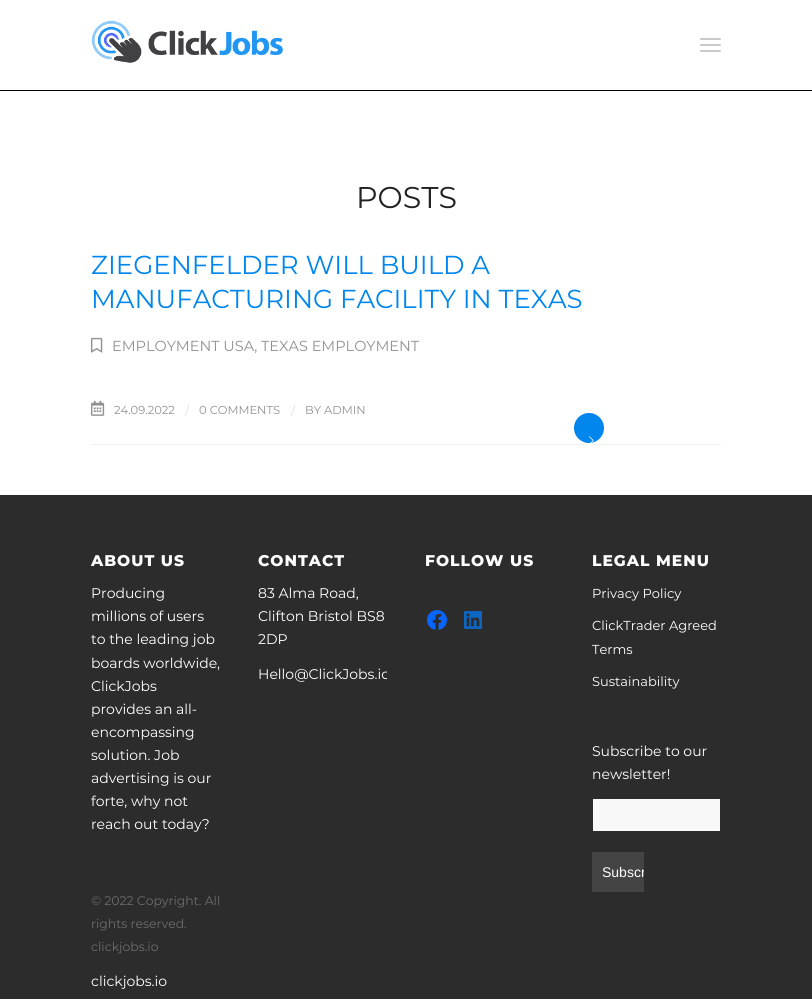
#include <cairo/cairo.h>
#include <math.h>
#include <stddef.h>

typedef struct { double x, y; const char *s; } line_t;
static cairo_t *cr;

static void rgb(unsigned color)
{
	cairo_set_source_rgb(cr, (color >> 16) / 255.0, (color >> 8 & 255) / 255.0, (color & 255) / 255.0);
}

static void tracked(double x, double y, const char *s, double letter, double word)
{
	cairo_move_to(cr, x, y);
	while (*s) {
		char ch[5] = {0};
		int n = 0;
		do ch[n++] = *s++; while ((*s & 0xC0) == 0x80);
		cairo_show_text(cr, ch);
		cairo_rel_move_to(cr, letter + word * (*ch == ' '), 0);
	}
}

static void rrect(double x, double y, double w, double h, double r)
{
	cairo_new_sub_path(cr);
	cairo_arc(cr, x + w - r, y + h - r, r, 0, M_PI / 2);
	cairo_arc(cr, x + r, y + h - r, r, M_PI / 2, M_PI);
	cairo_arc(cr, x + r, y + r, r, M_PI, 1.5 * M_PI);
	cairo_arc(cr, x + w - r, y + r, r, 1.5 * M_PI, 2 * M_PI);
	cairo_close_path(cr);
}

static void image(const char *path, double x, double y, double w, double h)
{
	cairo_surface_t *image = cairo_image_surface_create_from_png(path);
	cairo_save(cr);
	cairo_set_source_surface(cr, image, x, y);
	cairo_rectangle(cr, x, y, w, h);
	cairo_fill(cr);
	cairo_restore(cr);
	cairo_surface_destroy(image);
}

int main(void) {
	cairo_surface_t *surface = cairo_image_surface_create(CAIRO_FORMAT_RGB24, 812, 999);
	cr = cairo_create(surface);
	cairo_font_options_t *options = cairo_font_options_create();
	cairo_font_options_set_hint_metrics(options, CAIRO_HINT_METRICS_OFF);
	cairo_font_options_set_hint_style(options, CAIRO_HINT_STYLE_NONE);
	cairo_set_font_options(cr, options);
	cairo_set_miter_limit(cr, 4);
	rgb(0xffffff);
	cairo_paint(cr);
	rgb(0x000000);
	cairo_rectangle(cr, 0, 90, 812, 1);
	cairo_fill(cr);
	image("img/1.png", 91, 20, 192, 43);
	rgb(0xc9c9c9);
	rrect(700, 44, 21, 2, 1);
	cairo_fill(cr);
	rrect(700, 38, 21, 2, 1);
	cairo_fill(cr);
	rrect(700, 50, 21, 2, 1);
	cairo_fill(cr);
	rgb(0xf2f2f2);
	cairo_rectangle(cr, 91, 444, 630, 1);
	cairo_fill(cr);
	image("img/2.png", 91, 337, 12, 16);
	image("img/3.png", 91, 400, 14, 16);
	rgb(0x0086ec);
	cairo_arc(cr, 589, 428, 16, 0, 2 * M_PI);
	cairo_fill_preserve(cr);
	rgb(0xffffff);
	cairo_stroke(cr);
	image("img/4.png", 589, 436, 5, 7);
	rgb(0x2c2c2c);
	cairo_rectangle(cr, 0, 495, 812, 504);
	cairo_fill(cr);
	image("img/5.png", 427, 610, 20, 20);
	image("img/6.png", 464, 611, 18, 18);
	rgb(0xf8f8f8);
	cairo_rectangle(cr, 593, 799, 127, 32);
	cairo_fill(cr);
	rgb(0x444444);
	cairo_rectangle(cr, 592, 852, 52, 40);
	cairo_fill(cr);
	cairo_select_font_face(cr, "Montserrat Thin", CAIRO_FONT_SLANT_NORMAL, CAIRO_FONT_WEIGHT_NORMAL);
	cairo_set_font_size(cr, 30);
	rgb(0x222222);
	cairo_move_to(cr, 356, 208);
	cairo_show_text(cr, "POSTS");
	cairo_set_font_size(cr, 26);
	rgb(0x0086ec);
	cairo_move_to(cr, 91, 274);
	cairo_show_text(cr, "ZIEGENFELDER WILL BUILD A");
	cairo_move_to(cr, 91, 308);
	cairo_show_text(cr, "MANUFACTURING FACILITY IN TEXAS");
	cairo_set_font_size(cr, 14.5);
	rgb(0x919191);
	cairo_move_to(cr, 112, 351);
	cairo_show_text(cr, "EMPLOYMENT USA, TEXAS EMPLOYMENT");
	cairo_set_font_size(cr, 11.5);
	cairo_move_to(cr, 114, 414);
	cairo_show_text(cr, "24.09.2022");
	cairo_save(cr);
	cairo_rectangle(cr, 185, 397, 4, 27);
	cairo_clip(cr);
	cairo_set_font_size(cr, 13);
	rgb(0xdedede);
	cairo_move_to(cr, 185, 415);
	cairo_show_text(cr, "/");
	cairo_restore(cr);
	cairo_move_to(cr, 199, 414);
	cairo_show_text(cr, "0 COMMENTS");
	cairo_save(cr);
	cairo_rectangle(cr, 291, 397, 4, 27);
	cairo_clip(cr);
	cairo_set_font_size(cr, 13);
	rgb(0xdedede);
	cairo_move_to(cr, 291, 415);
	cairo_show_text(cr, "/");
	cairo_restore(cr);
	cairo_move_to(cr, 305, 414);
	cairo_show_text(cr, "BY ADMIN");
	cairo_select_font_face(cr, "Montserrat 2 Thin", CAIRO_FONT_SLANT_NORMAL, CAIRO_FONT_WEIGHT_NORMAL);
	cairo_set_font_size(cr, 15.5);
	rgb(0xffffff);
	tracked(91, 566, "ABOUT US", 1, 0);
	cairo_select_font_face(cr, "Montserrat Thin", CAIRO_FONT_SLANT_NORMAL, CAIRO_FONT_WEIGHT_NORMAL);
	cairo_set_font_size(cr, 14);
	{
		static const line_t items[] = {
			{91, 598, "Producing"},
			{91, 621, "millions of users"},
			{91, 644, "to the leading job"},
			{91, 668, "boards worldwide,"},
			{91, 691, "ClickJobs"},
			{91, 714, "provides an all-"},
			{91, 737, "encompassing"},
			{91, 760, "solution. Job"},
			{91, 783, "advertising is our"},
			{91, 806, "forte, why not"},
			{91, 829, "reach out today?"},
		};
		for (size_t i = 0; i < sizeof items / sizeof *items; i++) {
			cairo_move_to(cr, items[i].x, items[i].y);
			cairo_show_text(cr, items[i].s);
		}
	}
	cairo_set_font_size(cr, 12.4);
	rgb(0x6c6c6c);
	{
		static const line_t items[] = {
			{91, 905, "© 2022 Copyright. All"},
			{91, 928, "rights reserved."},
			{91, 951, "clickjobs.io"},
		};
		for (size_t i = 0; i < sizeof items / sizeof *items; i++) {
			cairo_move_to(cr, items[i].x, items[i].y);
			cairo_show_text(cr, items[i].s);
		}
	}
	cairo_set_font_size(cr, 14);
	rgb(0xffffff);
	cairo_move_to(cr, 91, 986);
	cairo_show_text(cr, "clickjobs.io");
	cairo_select_font_face(cr, "Montserrat 2 Thin", CAIRO_FONT_SLANT_NORMAL, CAIRO_FONT_WEIGHT_NORMAL);
	cairo_set_font_size(cr, 15.5);
	tracked(258, 566, "CONTACT", 1, 0);
	cairo_select_font_face(cr, "Montserrat Thin", CAIRO_FONT_SLANT_NORMAL, CAIRO_FONT_WEIGHT_NORMAL);
	cairo_set_font_size(cr, 14);
	{
		static const line_t items[] = {
			{258, 598, "83 Alma Road,"},
			{258, 621, "Clifton Bristol BS8"},
			{258, 644, "2DP"},
		};
		for (size_t i = 0; i < sizeof items / sizeof *items; i++) {
			cairo_move_to(cr, items[i].x, items[i].y);
			cairo_show_text(cr, items[i].s);
		}
	}
	cairo_save(cr);
	cairo_rectangle(cr, 258, 540, 129, 158);
	cairo_clip(cr);
	cairo_move_to(cr, 258, 679);
	cairo_show_text(cr, "Hello@ClickJobs.io");
	cairo_restore(cr);
	cairo_select_font_face(cr, "Montserrat 2 Thin", CAIRO_FONT_SLANT_NORMAL, CAIRO_FONT_WEIGHT_NORMAL);
	cairo_set_font_size(cr, 15.5);
	tracked(425, 566, "FOLLOW US", 1, 0);
	tracked(592, 566, "LEGAL MENU", 1, 0);
	cairo_select_font_face(cr, "Montserrat Thin", CAIRO_FONT_SLANT_NORMAL, CAIRO_FONT_WEIGHT_NORMAL);
	cairo_set_font_size(cr, 13);
	{
		static const line_t items[] = {
			{592, 598, "Privacy Policy"},
			{592, 630, "ClickTrader Agreed"},
			{592, 654, "Terms"},
			{592, 686, "Sustainability"},
		};
		for (size_t i = 0; i < sizeof items / sizeof *items; i++) {
			cairo_move_to(cr, items[i].x, items[i].y);
			cairo_show_text(cr, items[i].s);
		}
	}
	cairo_set_font_size(cr, 14);
	cairo_move_to(cr, 592, 756);
	cairo_show_text(cr, "Subscribe to our");
	cairo_move_to(cr, 592, 779);
	cairo_show_text(cr, "newsletter!");
	cairo_save(cr);
	cairo_rectangle(cr, 592, 852, 52, 40);
	cairo_clip(cr);
	cairo_select_font_face(cr, "Liberation Sans", CAIRO_FONT_SLANT_NORMAL, CAIRO_FONT_WEIGHT_NORMAL);
	cairo_move_to(cr, 602, 877);
	cairo_show_text(cr, "Subscr");
	cairo_restore(cr);
	cairo_surface_write_to_png(surface, "page.png");
	cairo_font_options_destroy(options);
	cairo_destroy(cr);
	cairo_surface_destroy(surface);
	return 0;
}
